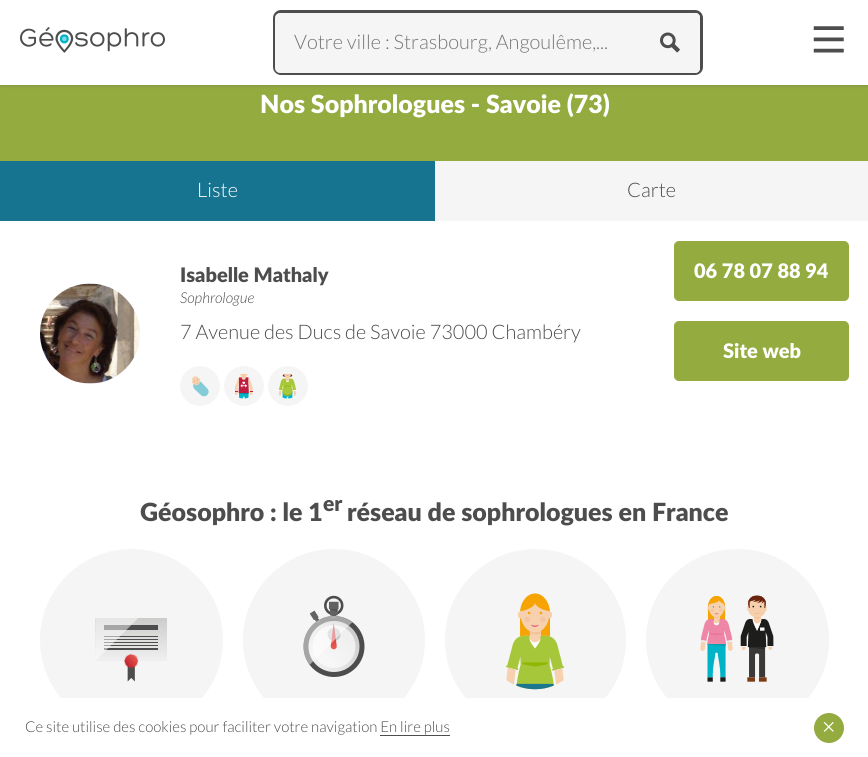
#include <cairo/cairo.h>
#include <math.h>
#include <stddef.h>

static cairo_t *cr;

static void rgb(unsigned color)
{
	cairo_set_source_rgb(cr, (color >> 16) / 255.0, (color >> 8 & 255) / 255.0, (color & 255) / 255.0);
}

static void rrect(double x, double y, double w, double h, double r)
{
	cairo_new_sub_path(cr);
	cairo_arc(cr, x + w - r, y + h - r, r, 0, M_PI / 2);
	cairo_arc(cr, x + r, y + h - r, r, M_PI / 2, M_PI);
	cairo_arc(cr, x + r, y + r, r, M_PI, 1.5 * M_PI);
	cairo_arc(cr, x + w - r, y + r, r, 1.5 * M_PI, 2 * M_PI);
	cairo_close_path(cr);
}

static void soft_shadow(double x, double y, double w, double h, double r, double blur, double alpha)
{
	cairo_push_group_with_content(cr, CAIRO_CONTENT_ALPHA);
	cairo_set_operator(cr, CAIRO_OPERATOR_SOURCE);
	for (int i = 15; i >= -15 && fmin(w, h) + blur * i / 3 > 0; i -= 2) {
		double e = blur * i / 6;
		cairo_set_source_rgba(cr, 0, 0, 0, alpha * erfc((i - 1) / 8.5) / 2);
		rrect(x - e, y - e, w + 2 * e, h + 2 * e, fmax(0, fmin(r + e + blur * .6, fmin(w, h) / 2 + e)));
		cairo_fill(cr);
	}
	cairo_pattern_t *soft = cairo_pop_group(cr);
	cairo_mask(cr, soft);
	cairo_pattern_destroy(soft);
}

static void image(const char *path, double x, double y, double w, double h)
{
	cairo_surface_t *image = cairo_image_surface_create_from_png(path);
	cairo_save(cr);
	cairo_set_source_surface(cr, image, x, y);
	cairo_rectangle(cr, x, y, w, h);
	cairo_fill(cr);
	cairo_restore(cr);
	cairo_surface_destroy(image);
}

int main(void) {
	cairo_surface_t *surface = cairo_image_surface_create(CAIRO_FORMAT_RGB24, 868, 757);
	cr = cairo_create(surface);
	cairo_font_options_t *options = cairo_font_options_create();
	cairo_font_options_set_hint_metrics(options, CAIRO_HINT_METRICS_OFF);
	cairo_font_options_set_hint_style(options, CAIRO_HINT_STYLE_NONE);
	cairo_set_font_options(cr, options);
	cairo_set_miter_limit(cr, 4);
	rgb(0xffffff);
	cairo_paint(cr);
	rgb(0x93ab3f);
	cairo_rectangle(cr, 0, 85, 868, 76);
	cairo_fill(cr);
	rgb(0x4d4d4d);
	soft_shadow(0, -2, 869, 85, 0, 2.5, 1);
	rgb(0xffffff);
	cairo_rectangle(cr, 0, 0, 868, 85);
	cairo_fill(cr);
	image("img/1.png", 20, 27, 145, 26);
	rrect(274.5, 11.5, 427, 62, 6.5);
	rgb(0x4d4d4d);
	cairo_set_line_width(cr, 3);
	cairo_stroke(cr);
	rgb(0xf5f5f5);
	rrect(275, 13, 425, 60, 5);
	cairo_fill(cr);
	cairo_new_path(cr);
	cairo_move_to(cr, 640, 13);
	cairo_line_to(cr, 695, 13);
	cairo_curve_to(cr, 698, 13, 700, 15, 700, 18);
	cairo_line_to(cr, 700, 68);
	cairo_curve_to(cr, 700, 71, 698, 73, 695, 73);
	cairo_line_to(cr, 640, 73);
	cairo_close_path(cr);
	cairo_fill(cr);
	image("img/2.png", 660, 32, 20, 21);
	image("img/3.png", 813, 26, 31, 27);
	cairo_rectangle(cr, 435, 161, 433, 60);
	cairo_fill(cr);
	rgb(0x177490);
	cairo_rectangle(cr, 0, 161, 435, 60);
	cairo_fill(cr);
	rgb(0xf5f5f5);
	cairo_arc(cr, 90, 334, 50, 0, 2 * M_PI);
	cairo_fill(cr);
	image("img/4.png", 40, 283, 100, 101);
	cairo_arc(cr, 200, 386, 20, 0, 2 * M_PI);
	cairo_fill(cr);
	image("img/5.png", 192, 376, 17, 21);
	cairo_arc(cr, 244, 386, 20, 0, 2 * M_PI);
	cairo_fill(cr);
	image("img/6.png", 234, 374, 19, 25);
	cairo_arc(cr, 288, 386, 20, 0, 2 * M_PI);
	cairo_fill(cr);
	image("img/7.png", 278, 373, 19, 26);
	rgb(0x93ab3f);
	rrect(674, 241, 175, 60, 5);
	cairo_fill(cr);
	rrect(674, 321, 175, 60, 5);
	cairo_fill(cr);
	rgb(0xf5f5f5);
	rrect(40, 549, 183, 182, 91);
	cairo_fill(cr);
	image("img/8.png", 95, 618, 72, 64);
	cairo_arc(cr, 334, 640, 91, 0, 2 * M_PI);
	cairo_fill(cr);
	image("img/9.png", 303, 595, 62, 82);
	rrect(445, 549, 181, 182, 90.5);
	cairo_fill(cr);
	image("img/10.png", 506, 593, 59, 97);
	rrect(646, 549, 183, 182, 91);
	cairo_fill(cr);
	image("img/11.png", 700, 595, 74, 87);
	rgb(0xffffff);
	cairo_rectangle(cr, 61, 698, 747, 33);
	cairo_fill(cr);
	rgb(0x4d4d4d);
	cairo_rectangle(cr, 380, 735, 70, 1);
	cairo_fill(cr);
	rgb(0x93ab3f);
	cairo_arc(cr, 829, 728, 15, 0, 2 * M_PI);
	cairo_fill(cr);
	image("img/12.png", 823, 722, 11, 10);
	cairo_select_font_face(cr, "Lato Light", CAIRO_FONT_SLANT_NORMAL, CAIRO_FONT_WEIGHT_NORMAL);
	cairo_set_font_size(cr, 20);
	rgb(0x777777);
	cairo_move_to(cr, 294, 49);
	cairo_show_text(cr, "Votre ville : Strasbourg, Angoulême,...");
	cairo_select_font_face(cr, "Lato Black", CAIRO_FONT_SLANT_NORMAL, CAIRO_FONT_WEIGHT_NORMAL);
	cairo_set_font_size(cr, 25);
	rgb(0xffffff);
	cairo_move_to(cr, 260, 113);
	cairo_show_text(cr, "Nos Sophrologues - Savoie (73)");
	cairo_select_font_face(cr, "Lato Light", CAIRO_FONT_SLANT_NORMAL, CAIRO_FONT_WEIGHT_NORMAL);
	cairo_set_font_size(cr, 20);
	cairo_move_to(cr, 197, 197);
	cairo_show_text(cr, "Liste");
	rgb(0x4d4d4d);
	cairo_move_to(cr, 627, 197);
	cairo_show_text(cr, "Carte");
	cairo_select_font_face(cr, "Lato Black", CAIRO_FONT_SLANT_NORMAL, CAIRO_FONT_WEIGHT_NORMAL);
	cairo_move_to(cr, 180, 282);
	cairo_show_text(cr, "Isabelle Mathaly");
	cairo_select_font_face(cr, "Lato Light", CAIRO_FONT_SLANT_ITALIC, CAIRO_FONT_WEIGHT_NORMAL);
	cairo_set_font_size(cr, 15);
	cairo_move_to(cr, 180, 303);
	cairo_show_text(cr, "Sophrologue");
	cairo_select_font_face(cr, "Lato Light", CAIRO_FONT_SLANT_NORMAL, CAIRO_FONT_WEIGHT_NORMAL);
	cairo_set_font_size(cr, 20);
	cairo_move_to(cr, 180, 339);
	cairo_show_text(cr, "7 Avenue des Ducs de Savoie 73000 Chambéry");
	cairo_select_font_face(cr, "Lato Black", CAIRO_FONT_SLANT_NORMAL, CAIRO_FONT_WEIGHT_NORMAL);
	rgb(0xffffff);
	cairo_move_to(cr, 694, 278);
	cairo_show_text(cr, "06 78 07 88 94");
	cairo_move_to(cr, 723, 358);
	cairo_show_text(cr, "Site web");
	cairo_set_font_size(cr, 25);
	rgb(0x4d4d4d);
	cairo_move_to(cr, 140, 521);
	cairo_show_text(cr, "Géosophro : le 1");
	cairo_set_font_size(cr, 21);
	cairo_move_to(cr, 323, 511);
	cairo_show_text(cr, "er");
	cairo_set_font_size(cr, 25);
	cairo_move_to(cr, 347, 521);
	cairo_show_text(cr, "réseau de sophrologues en France");
	cairo_select_font_face(cr, "Lato Light", CAIRO_FONT_SLANT_NORMAL, CAIRO_FONT_WEIGHT_NORMAL);
	cairo_set_font_size(cr, 15);
	cairo_move_to(cr, 25, 732);
	cairo_show_text(cr, "Ce site utilise des cookies pour faciliter votre navigation En lire plus");
	cairo_surface_write_to_png(surface, "page.png");
	cairo_font_options_destroy(options);
	cairo_destroy(cr);
	cairo_surface_destroy(surface);
	return 0;
}
